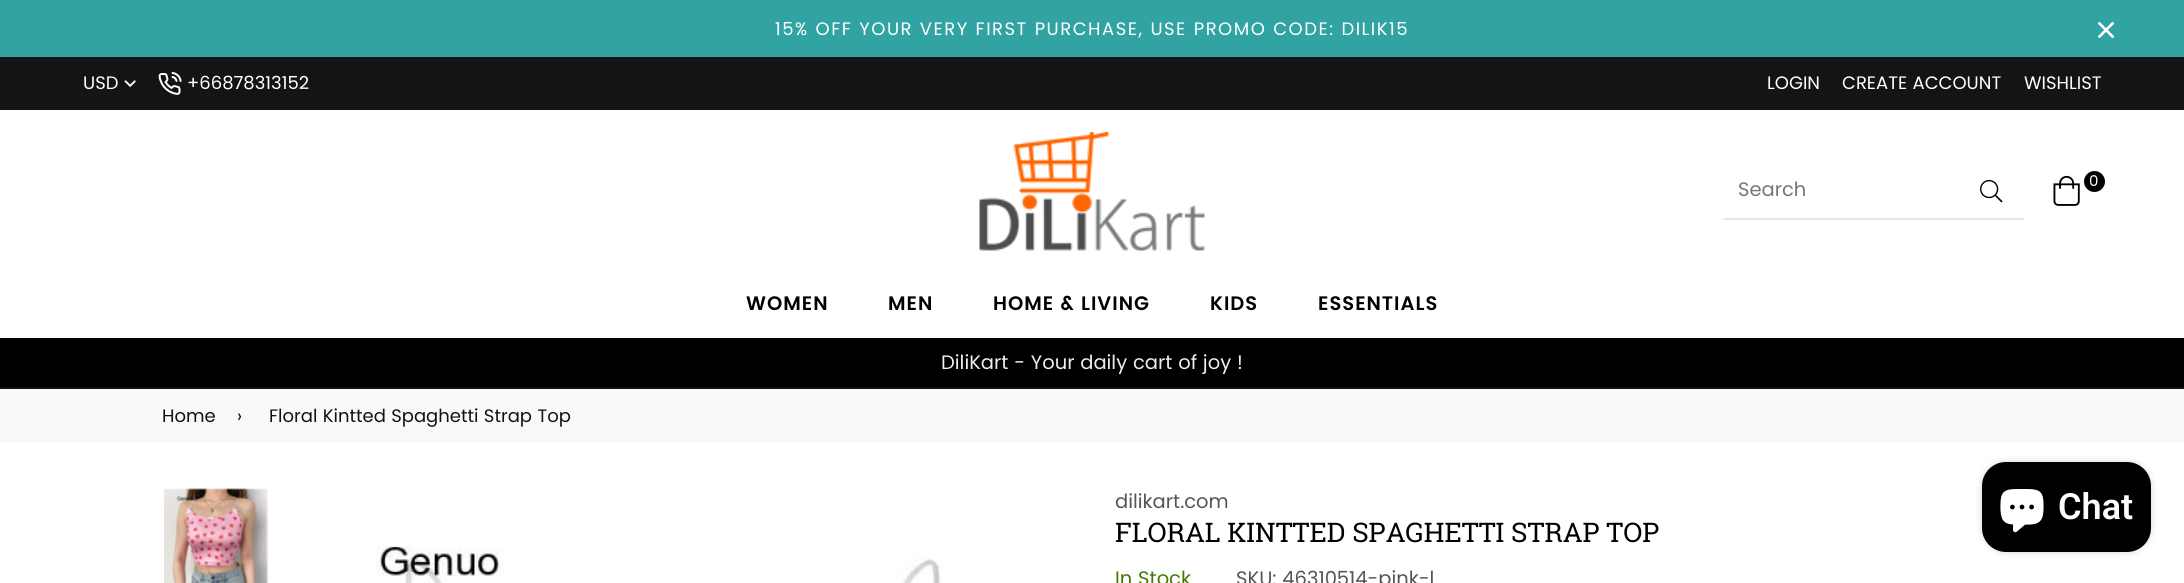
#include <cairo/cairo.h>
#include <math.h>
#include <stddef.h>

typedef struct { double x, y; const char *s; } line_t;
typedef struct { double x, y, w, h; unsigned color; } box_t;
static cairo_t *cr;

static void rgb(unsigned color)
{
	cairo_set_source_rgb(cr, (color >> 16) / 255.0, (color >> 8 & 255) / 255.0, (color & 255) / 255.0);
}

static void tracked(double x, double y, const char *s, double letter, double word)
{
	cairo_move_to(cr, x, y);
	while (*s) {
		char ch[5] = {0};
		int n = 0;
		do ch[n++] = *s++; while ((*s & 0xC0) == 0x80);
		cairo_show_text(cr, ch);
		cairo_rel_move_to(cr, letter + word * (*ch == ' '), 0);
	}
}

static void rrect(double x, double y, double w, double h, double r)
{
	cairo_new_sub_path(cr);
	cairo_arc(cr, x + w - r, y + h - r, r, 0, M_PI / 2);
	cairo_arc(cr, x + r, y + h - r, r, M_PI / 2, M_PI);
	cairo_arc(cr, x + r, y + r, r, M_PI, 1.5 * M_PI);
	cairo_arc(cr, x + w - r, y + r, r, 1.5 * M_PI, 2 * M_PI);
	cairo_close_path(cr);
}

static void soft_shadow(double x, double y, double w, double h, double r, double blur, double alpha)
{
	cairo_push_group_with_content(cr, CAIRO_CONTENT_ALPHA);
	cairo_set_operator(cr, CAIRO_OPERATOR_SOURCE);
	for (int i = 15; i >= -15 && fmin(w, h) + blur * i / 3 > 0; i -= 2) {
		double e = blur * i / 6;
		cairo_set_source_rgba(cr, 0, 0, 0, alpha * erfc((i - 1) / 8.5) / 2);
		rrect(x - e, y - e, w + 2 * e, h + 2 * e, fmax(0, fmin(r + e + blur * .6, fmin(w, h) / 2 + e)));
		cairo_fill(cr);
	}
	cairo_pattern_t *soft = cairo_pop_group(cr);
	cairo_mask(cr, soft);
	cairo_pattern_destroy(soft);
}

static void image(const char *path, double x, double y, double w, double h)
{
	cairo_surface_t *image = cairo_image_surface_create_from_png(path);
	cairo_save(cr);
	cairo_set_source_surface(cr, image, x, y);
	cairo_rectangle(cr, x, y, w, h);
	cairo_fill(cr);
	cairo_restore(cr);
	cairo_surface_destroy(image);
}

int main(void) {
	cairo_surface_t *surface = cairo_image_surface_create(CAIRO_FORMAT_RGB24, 2184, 583);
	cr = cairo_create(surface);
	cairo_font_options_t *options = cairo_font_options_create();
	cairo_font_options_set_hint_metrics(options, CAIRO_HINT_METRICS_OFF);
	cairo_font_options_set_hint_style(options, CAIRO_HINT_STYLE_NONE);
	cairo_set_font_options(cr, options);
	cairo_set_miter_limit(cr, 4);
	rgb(0xffffff);
	cairo_paint(cr);
	rgb(0x31a3a3);
	cairo_rectangle(cr, 0, 0, 2184, 57);
	cairo_fill(cr);
	image("img/1.png", 2097, 21, 18, 18);
	rgb(0x141414);
	cairo_rectangle(cr, 0, 57, 2184, 53);
	cairo_fill(cr);
	image("img/2.png", 124, 80, 12, 7);
	image("img/3.png", 158, 72, 24, 23);
	image("img/4.png", 979, 132, 226, 119);
	rgb(0xe6e6e6);
	cairo_rectangle(cr, 1724, 218, 300, 2);
	cairo_fill(cr);
	image("img/5.png", 1980, 179, 23, 24);
	image("img/6.png", 2053, 175, 27, 31);
	rgb(0x000000);
	cairo_arc(cr, 2094.5, 181.5, 10.5, 0, 2 * M_PI);
	cairo_fill(cr);
	{
		static const box_t items[] = {
			{0, 338, 2184, 49, 0x000000},
			{0, 387, 2184, 2, 0x111111},
			{0, 389, 2184, 54, 0xf9f9f9},
		};
		for (size_t i = 0; i < sizeof items / sizeof *items; i++) {
			rgb(items[i].color);
			cairo_rectangle(cr, items[i].x, items[i].y, items[i].w, items[i].h);
			cairo_fill(cr);
		}
	}
	image("img/7.png", 164, 488, 104, 95);
	image("img/8.png", 375, 545, 566, 38);
	rgb(0x000000);
	soft_shadow(1982, 462, 169, 90, 24, 4, 0.15);
	rgb(0x000000);
	rrect(1982, 462, 169, 90, 24);
	cairo_fill(cr);
	image("img/9.png", 2000, 489, 44, 44);
	cairo_select_font_face(cr, "Poppins", CAIRO_FONT_SLANT_NORMAL, CAIRO_FONT_WEIGHT_NORMAL);
	cairo_set_font_size(cr, 18);
	rgb(0xffffff);
	tracked(775, 35, "15% OFF YOUR VERY FIRST PURCHASE, USE PROMO CODE: DILIK15", 1.5, 0);
	{
		static const line_t items[] = {
			{83, 89, "USD"},
			{187, 89, "+66878313152"},
			{1767, 89, "LOGIN"},
			{1842, 89, "CREATE ACCOUNT"},
			{2024, 89, "WISHLIST"},
		};
		for (size_t i = 0; i < sizeof items / sizeof *items; i++) {
			cairo_move_to(cr, items[i].x, items[i].y);
			cairo_show_text(cr, items[i].s);
		}
	}
	cairo_set_font_size(cr, 19.5);
	rgb(0x757575);
	cairo_move_to(cr, 1738, 196);
	cairo_show_text(cr, "Search");
	cairo_set_font_size(cr, 15);
	rgb(0xffffff);
	cairo_move_to(cr, 2089, 186);
	cairo_show_text(cr, "0");
	cairo_select_font_face(cr, "Poppins SemiBold", CAIRO_FONT_SLANT_NORMAL, CAIRO_FONT_WEIGHT_NORMAL);
	cairo_set_font_size(cr, 19.5);
	rgb(0x000000);
	{
		static const line_t items[] = {
			{746, 310, "WOMEN"},
			{888, 310, "MEN"},
			{993, 310, "HOME & LIVING"},
			{1210, 310, "KIDS"},
			{1318, 310, "ESSENTIALS"},
		};
		for (size_t i = 0; i < sizeof items / sizeof *items; i++) {
			tracked(items[i].x, items[i].y, items[i].s, 1, 0);
		}
	}
	cairo_select_font_face(cr, "Poppins", CAIRO_FONT_SLANT_NORMAL, CAIRO_FONT_WEIGHT_NORMAL);
	rgb(0xeeeeee);
	cairo_move_to(cr, 941, 369);
	cairo_show_text(cr, "DiliKart - Your daily cart of joy !");
	cairo_set_font_size(cr, 18);
	rgb(0x111111);
	{
		static const line_t items[] = {
			{162, 422, "Home"},
			{237, 422, "›"},
			{269, 422, "Floral Kintted Spaghetti Strap Top"},
		};
		for (size_t i = 0; i < sizeof items / sizeof *items; i++) {
			cairo_move_to(cr, items[i].x, items[i].y);
			cairo_show_text(cr, items[i].s);
		}
	}
	cairo_set_font_size(cr, 19.5);
	rgb(0x555555);
	cairo_move_to(cr, 1115, 508);
	cairo_show_text(cr, "dilikart.com");
	cairo_select_font_face(cr, "Roboto Slab", CAIRO_FONT_SLANT_NORMAL, CAIRO_FONT_WEIGHT_NORMAL);
	cairo_set_font_size(cr, 27);
	rgb(0x000000);
	cairo_move_to(cr, 1115, 542);
	cairo_show_text(cr, "FLORAL KINTTED SPAGHETTI STRAP TOP");
	cairo_select_font_face(cr, "Poppins", CAIRO_FONT_SLANT_NORMAL, CAIRO_FONT_WEIGHT_NORMAL);
	cairo_set_font_size(cr, 19.5);
	rgb(0x447900);
	cairo_move_to(cr, 1115, 585);
	cairo_show_text(cr, "In Stock");
	rgb(0x555555);
	cairo_move_to(cr, 1236, 585);
	cairo_show_text(cr, "SKU: 46310514-pink-l");
	cairo_select_font_face(cr, "Roboto SemiBold", CAIRO_FONT_SLANT_NORMAL, CAIRO_FONT_WEIGHT_NORMAL);
	cairo_set_font_size(cr, 36);
	rgb(0xffffff);
	cairo_move_to(cr, 2058, 519);
	cairo_show_text(cr, "Chat");
	cairo_surface_write_to_png(surface, "page.png");
	cairo_font_options_destroy(options);
	cairo_destroy(cr);
	cairo_surface_destroy(surface);
	return 0;
}
